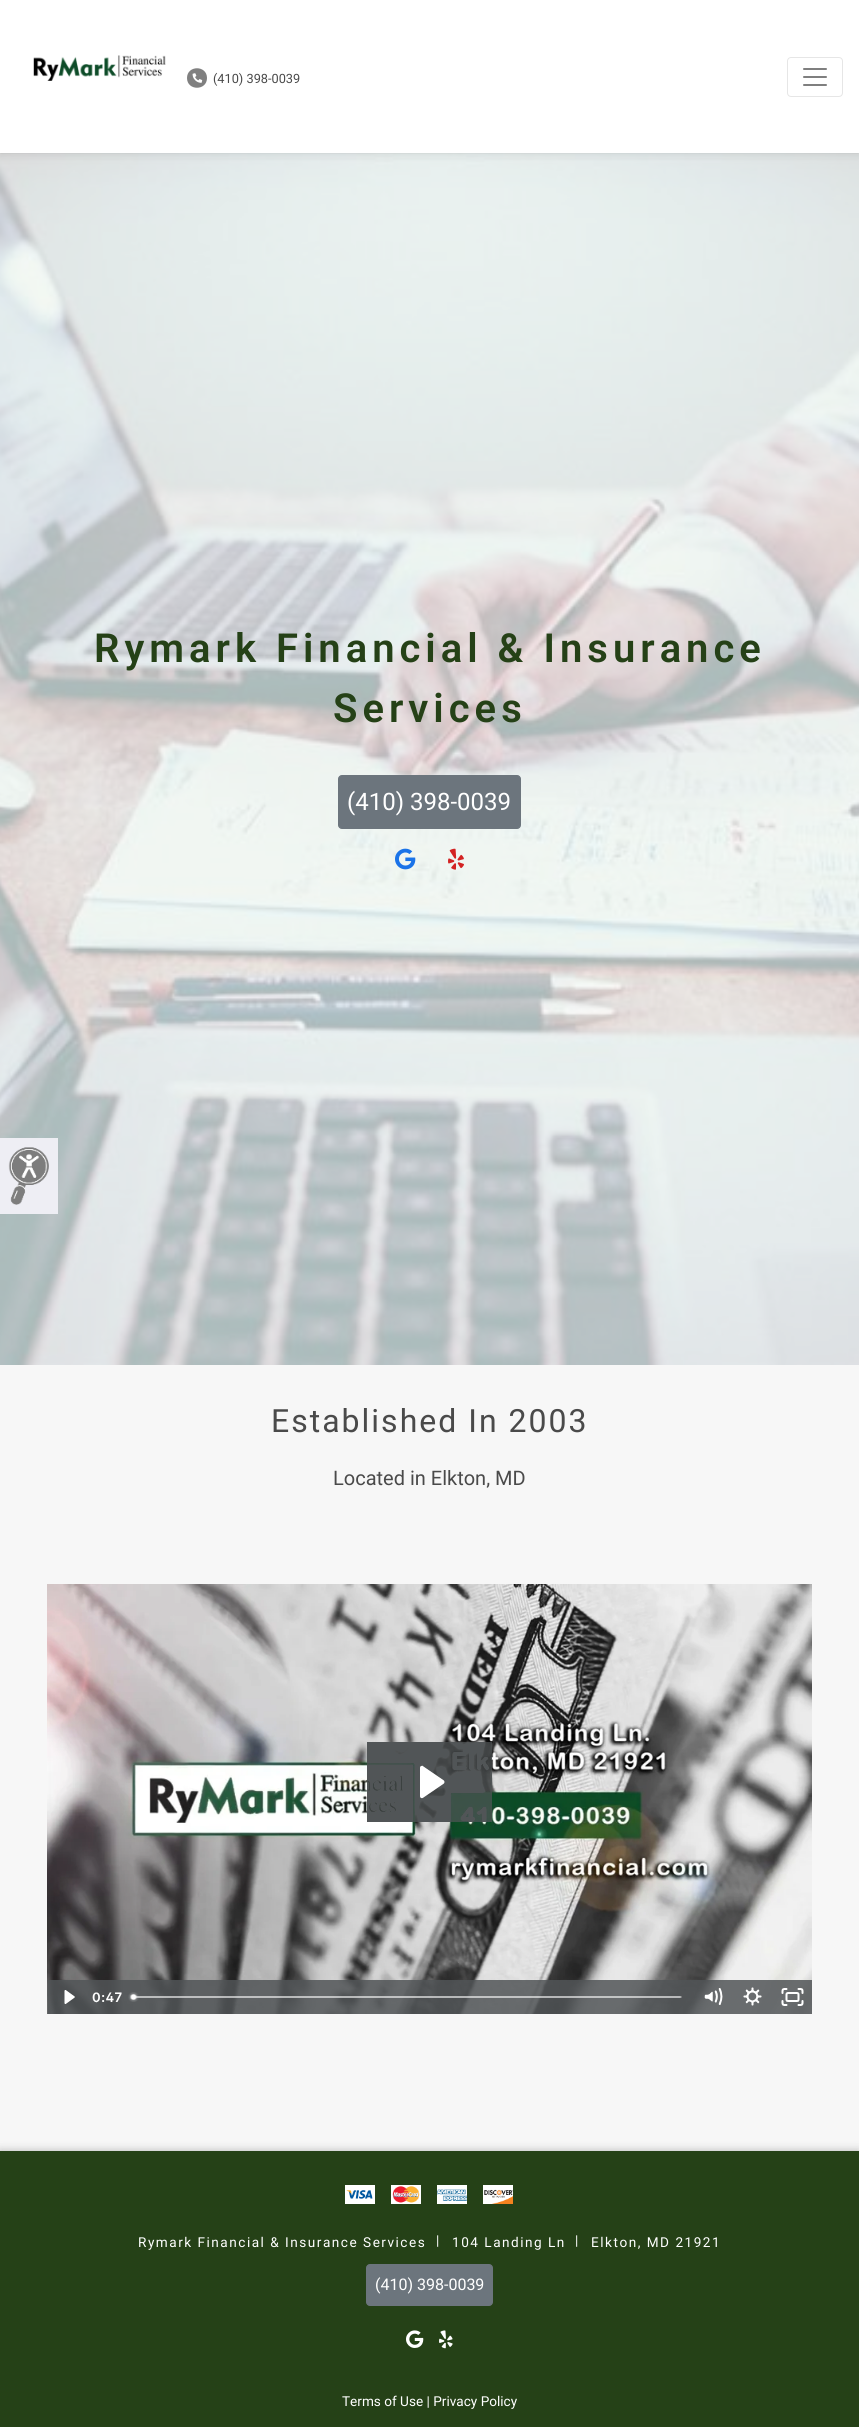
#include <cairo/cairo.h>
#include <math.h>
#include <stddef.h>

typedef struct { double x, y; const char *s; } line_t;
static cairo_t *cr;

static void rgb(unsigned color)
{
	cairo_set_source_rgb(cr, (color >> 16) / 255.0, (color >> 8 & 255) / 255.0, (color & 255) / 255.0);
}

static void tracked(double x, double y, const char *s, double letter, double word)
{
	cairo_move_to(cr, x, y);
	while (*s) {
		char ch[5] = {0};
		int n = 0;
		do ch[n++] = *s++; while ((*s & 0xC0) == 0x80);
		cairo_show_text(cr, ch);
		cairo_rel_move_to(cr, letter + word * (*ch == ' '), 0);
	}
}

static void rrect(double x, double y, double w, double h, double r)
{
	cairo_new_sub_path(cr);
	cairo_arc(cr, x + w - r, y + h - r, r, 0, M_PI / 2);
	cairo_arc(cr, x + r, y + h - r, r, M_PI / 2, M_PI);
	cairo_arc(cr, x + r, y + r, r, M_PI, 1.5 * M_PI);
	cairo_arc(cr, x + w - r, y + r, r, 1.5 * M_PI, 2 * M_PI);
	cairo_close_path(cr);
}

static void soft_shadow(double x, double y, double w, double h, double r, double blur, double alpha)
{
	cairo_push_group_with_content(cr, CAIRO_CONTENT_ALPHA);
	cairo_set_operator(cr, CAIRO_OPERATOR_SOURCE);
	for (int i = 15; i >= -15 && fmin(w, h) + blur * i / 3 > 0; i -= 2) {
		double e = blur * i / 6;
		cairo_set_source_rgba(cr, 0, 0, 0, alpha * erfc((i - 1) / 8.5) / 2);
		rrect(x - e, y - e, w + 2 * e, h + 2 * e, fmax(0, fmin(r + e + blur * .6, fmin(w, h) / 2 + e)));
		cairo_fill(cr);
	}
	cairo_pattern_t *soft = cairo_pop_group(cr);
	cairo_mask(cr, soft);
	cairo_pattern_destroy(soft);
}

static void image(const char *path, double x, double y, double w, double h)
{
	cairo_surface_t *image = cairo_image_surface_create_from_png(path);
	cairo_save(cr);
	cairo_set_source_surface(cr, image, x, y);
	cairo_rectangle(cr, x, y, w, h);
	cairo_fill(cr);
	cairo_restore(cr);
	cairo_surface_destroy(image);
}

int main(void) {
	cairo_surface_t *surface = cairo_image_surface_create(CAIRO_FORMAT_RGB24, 859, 2427);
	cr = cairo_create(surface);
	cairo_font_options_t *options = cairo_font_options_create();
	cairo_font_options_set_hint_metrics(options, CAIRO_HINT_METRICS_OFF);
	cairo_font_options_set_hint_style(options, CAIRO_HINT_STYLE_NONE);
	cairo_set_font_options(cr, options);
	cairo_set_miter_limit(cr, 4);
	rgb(0xf7f7f7);
	cairo_paint(cr);
	image("img/5.png", 0, 153, 859, 1212);
	rgb(0x000000);
	soft_shadow(0, 2, 859, 153, 0, 4, 0.1);
	rgb(0xffffff);
	cairo_rectangle(cr, 0, 0, 859, 153);
	cairo_fill(cr);
	image("img/1.png", 33, 55, 133, 26);
	rgb(0x808080);
	cairo_new_path(cr);
	cairo_move_to(cr, 207, 78);
	cairo_curve_to(cr, 207, 91, 187, 91, 187, 78);
	cairo_curve_to(cr, 187, 65, 207, 65, 207, 78);
	cairo_close_path(cr);
	cairo_fill(cr);
	image("img/2.png", 192, 73, 11, 10);
	rrect(787.5, 57.5, 55, 39, 3.5);
	rgb(0xe6e6e6);
	cairo_set_line_width(cr, 1);
	cairo_stroke(cr);
	image("img/3.png", 803, 68, 24, 18);
	rgb(0xeeeef4);
	cairo_rectangle(cr, 0, 1138, 58, 76);
	cairo_fill(cr);
	image("img/4.png", 8, 1147, 41, 58);
	rgb(0x6c757d);
	rrect(338.5, 775.5, 182, 53, 3.5);
	cairo_fill_preserve(cr);
	cairo_stroke(cr);
	image("img/6.png", 395, 848, 21, 22);
	image("img/7.png", 448, 848, 16, 22);
	image("img/8.png", 47, 1584, 765, 430);
	rgb(0x000000);
	soft_shadow(0, 2152, 859, 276, 0, 5, 0.33);
	rgb(0x254117);
	cairo_rectangle(cr, 0, 2151, 859, 276);
	cairo_fill(cr);
	image("img/9.png", 345, 2185, 30, 19);
	image("img/10.png", 391, 2185, 30, 19);
	image("img/11.png", 437, 2185, 30, 19);
	image("img/12.png", 483, 2185, 30, 19);
	rgb(0x6c757d);
	rrect(366.5, 2264.5, 126, 41, 3.5);
	cairo_fill_preserve(cr);
	cairo_stroke(cr);
	image("img/13.png", 406, 2330, 18, 18);
	image("img/14.png", 439, 2330, 14, 19);
	cairo_select_font_face(cr, "Roboto", CAIRO_FONT_SLANT_NORMAL, CAIRO_FONT_WEIGHT_NORMAL);
	cairo_set_font_size(cr, 12.75);
	rgb(0x4a4a4a);
	cairo_move_to(cr, 213, 83);
	cairo_show_text(cr, "(410) 398-0039");
	cairo_select_font_face(cr, "Roboto SemiBold", CAIRO_FONT_SLANT_NORMAL, CAIRO_FONT_WEIGHT_NORMAL);
	cairo_set_font_size(cr, 40);
	rgb(0x254117);
	tracked(94, 662, "Rymark Financial & Insurance", 5, 0);
	tracked(333, 722, "Services", 5, 0);
	cairo_select_font_face(cr, "Roboto", CAIRO_FONT_SLANT_NORMAL, CAIRO_FONT_WEIGHT_NORMAL);
	cairo_set_font_size(cr, 24);
	rgb(0xffffff);
	cairo_move_to(cr, 347, 810);
	cairo_show_text(cr, "(410) 398-0039");
	cairo_set_font_size(cr, 32);
	rgb(0x4a4a4a);
	tracked(271, 1432, "Established In 2003", 2, 0);
	cairo_set_font_size(cr, 20);
	cairo_move_to(cr, 333, 1485);
	cairo_show_text(cr, "Located in Elkton, MD");
	cairo_set_font_size(cr, 13.6);
	rgb(0xffffff);
	{
		static const line_t items[] = {
			{138, 2247, "Rymark Financial & Insurance Services"},
			{436, 2245, "|"},
			{452, 2247, "104 Landing Ln"},
			{575, 2245, "|"},
			{591, 2247, "Elkton, MD 21921"},
		};
		for (size_t i = 0; i < sizeof items / sizeof *items; i++) {
			tracked(items[i].x, items[i].y, items[i].s, 1.5, 0);
		}
	}
	cairo_set_font_size(cr, 16);
	cairo_move_to(cr, 375, 2290);
	cairo_show_text(cr, "(410) 398-0039");
	cairo_set_font_size(cr, 13.6);
	cairo_move_to(cr, 342, 2406);
	cairo_show_text(cr, "Terms of Use | Privacy Policy");
	cairo_surface_write_to_png(surface, "page.png");
	cairo_font_options_destroy(options);
	cairo_destroy(cr);
	cairo_surface_destroy(surface);
	return 0;
}
